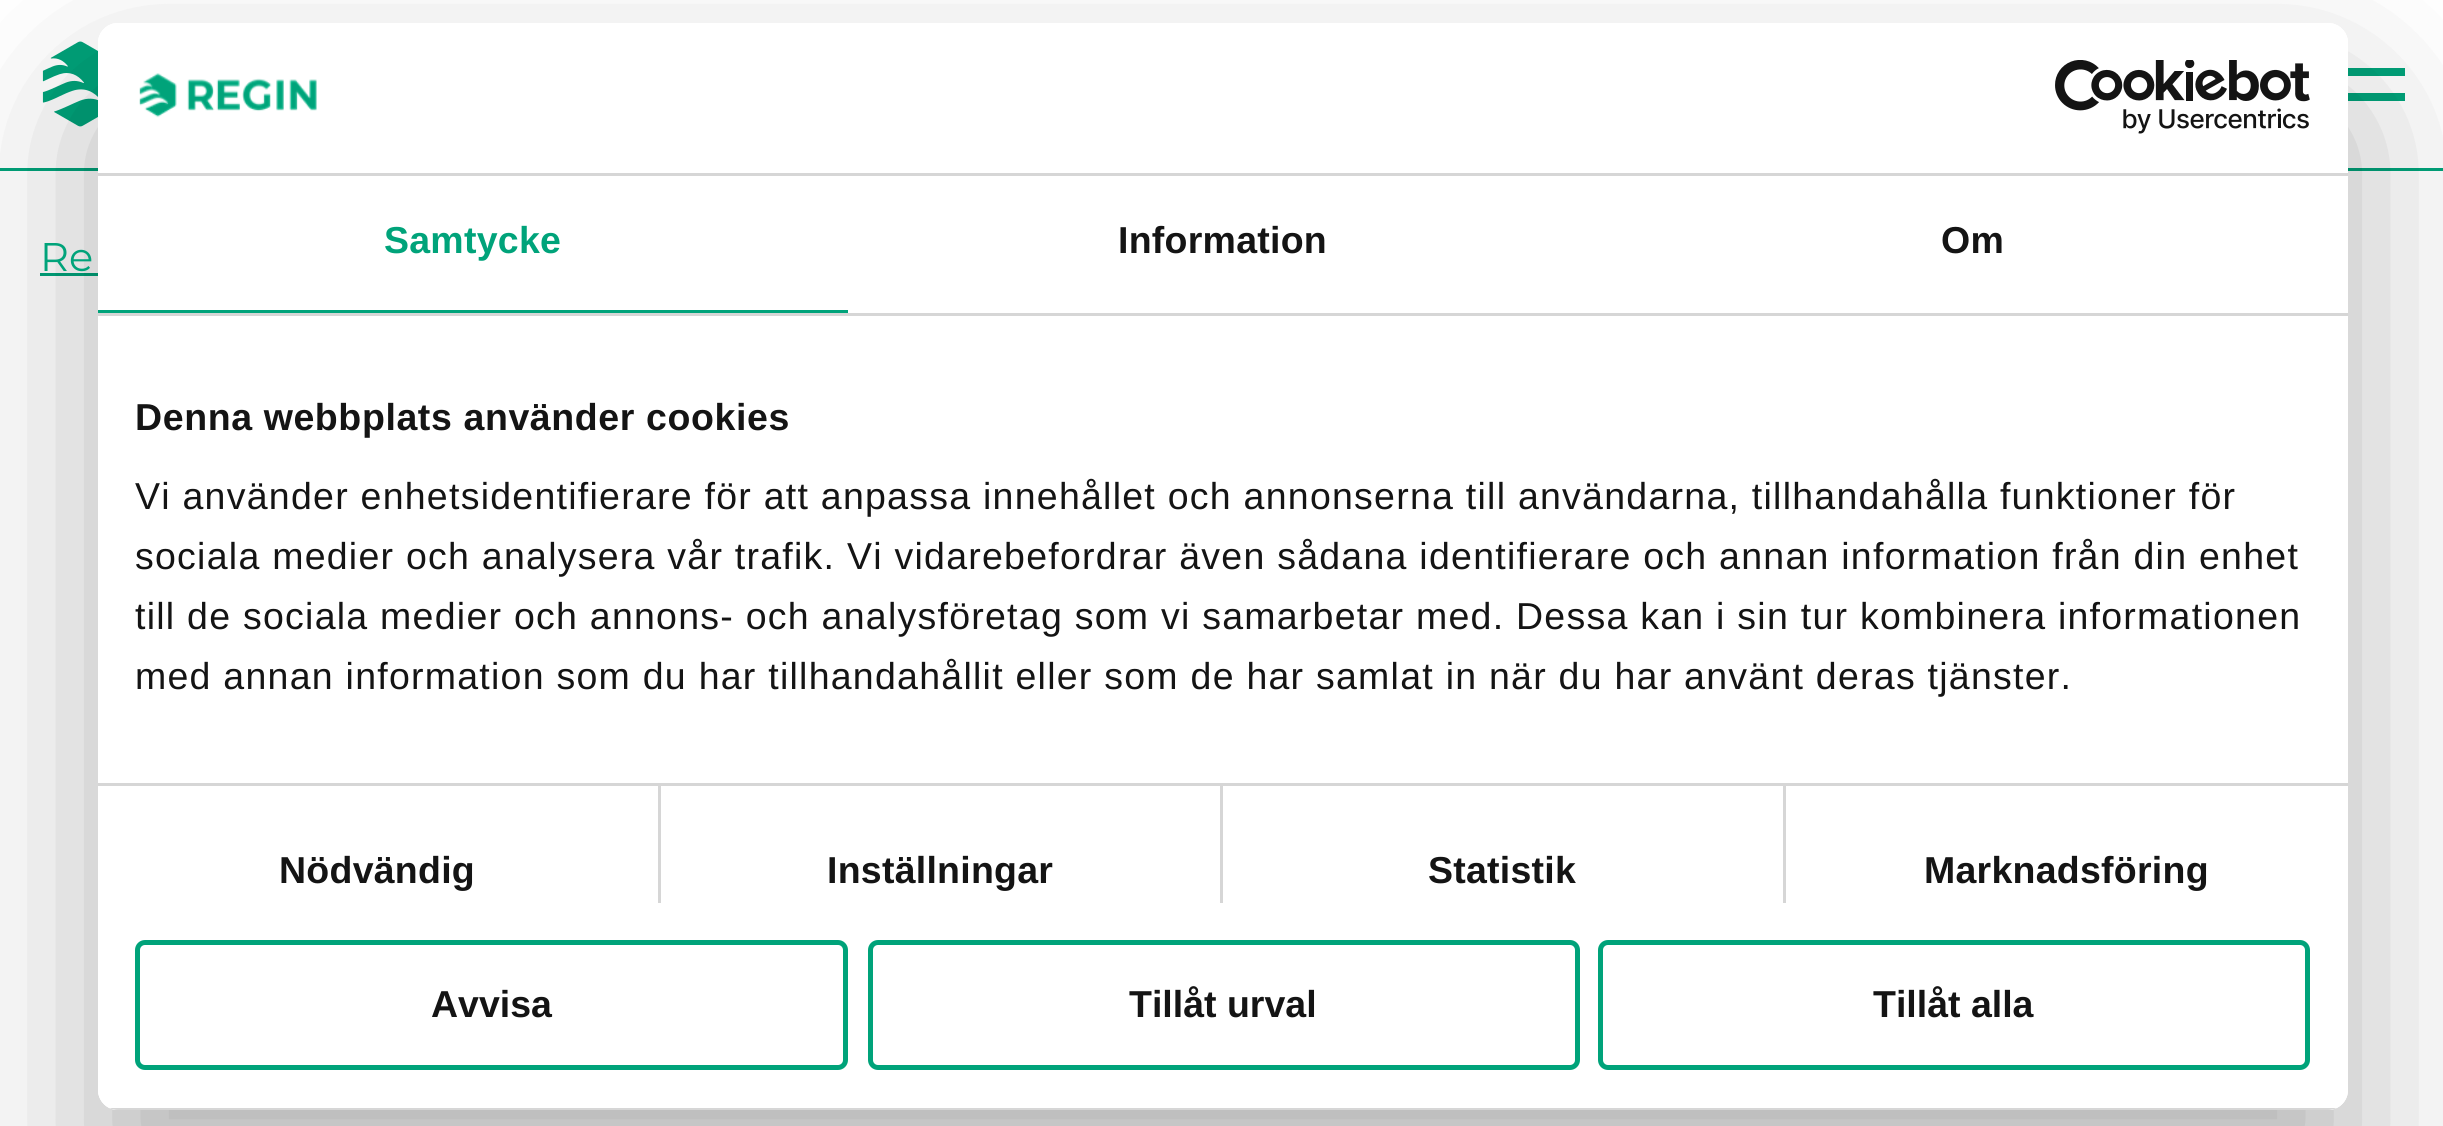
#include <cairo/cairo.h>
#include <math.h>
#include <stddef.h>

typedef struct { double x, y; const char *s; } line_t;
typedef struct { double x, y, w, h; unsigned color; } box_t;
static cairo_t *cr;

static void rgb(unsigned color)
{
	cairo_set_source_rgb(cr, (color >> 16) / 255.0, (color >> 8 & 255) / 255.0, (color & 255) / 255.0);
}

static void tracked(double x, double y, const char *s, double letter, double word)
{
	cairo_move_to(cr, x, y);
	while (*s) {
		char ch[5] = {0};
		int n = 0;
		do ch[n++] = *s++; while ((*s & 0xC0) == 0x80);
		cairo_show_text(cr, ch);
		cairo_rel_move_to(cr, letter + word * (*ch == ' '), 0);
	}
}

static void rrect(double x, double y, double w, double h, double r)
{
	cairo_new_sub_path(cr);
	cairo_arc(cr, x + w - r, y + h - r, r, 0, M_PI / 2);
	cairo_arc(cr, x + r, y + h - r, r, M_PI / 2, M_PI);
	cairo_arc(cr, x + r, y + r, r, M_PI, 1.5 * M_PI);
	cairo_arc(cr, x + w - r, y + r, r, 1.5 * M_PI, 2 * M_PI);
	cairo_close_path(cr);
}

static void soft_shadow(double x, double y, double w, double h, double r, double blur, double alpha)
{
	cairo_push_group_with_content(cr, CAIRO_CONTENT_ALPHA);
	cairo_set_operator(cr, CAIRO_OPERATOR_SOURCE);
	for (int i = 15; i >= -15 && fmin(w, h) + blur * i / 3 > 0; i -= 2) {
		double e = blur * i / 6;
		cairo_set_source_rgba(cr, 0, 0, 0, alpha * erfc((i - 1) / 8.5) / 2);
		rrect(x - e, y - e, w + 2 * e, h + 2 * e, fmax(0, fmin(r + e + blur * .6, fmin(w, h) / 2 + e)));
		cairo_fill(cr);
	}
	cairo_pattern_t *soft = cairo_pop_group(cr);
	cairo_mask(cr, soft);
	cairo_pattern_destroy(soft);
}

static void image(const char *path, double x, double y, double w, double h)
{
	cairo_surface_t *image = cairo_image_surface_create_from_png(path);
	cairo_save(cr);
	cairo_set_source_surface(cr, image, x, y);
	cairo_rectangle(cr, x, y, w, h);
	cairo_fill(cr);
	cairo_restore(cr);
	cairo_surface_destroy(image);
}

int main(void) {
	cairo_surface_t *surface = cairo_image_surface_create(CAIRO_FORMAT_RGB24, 2443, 1126);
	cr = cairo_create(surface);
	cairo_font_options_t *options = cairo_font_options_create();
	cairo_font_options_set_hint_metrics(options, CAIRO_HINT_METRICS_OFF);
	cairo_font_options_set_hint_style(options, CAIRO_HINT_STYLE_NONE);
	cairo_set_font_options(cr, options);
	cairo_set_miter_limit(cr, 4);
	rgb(0xffffff);
	cairo_paint(cr);
	rgb(0x00a37a);
	cairo_rectangle(cr, 0, 168, 2443, 3);
	cairo_fill(cr);
	image("img/1.png", 42, 41, 56, 86);
	{
		static const box_t items[] = {
			{2345, 68, 60, 8, 0x00a37a},
			{2345, 93, 60, 8, 0x00a37a},
			{40, 273, 58, 3, 0x00a37a},
		};
		for (size_t i = 0; i < sizeof items / sizeof *items; i++) {
			rgb(items[i].color);
			cairo_rectangle(cr, items[i].x, items[i].y, items[i].w, items[i].h);
			cairo_fill(cr);
		}
	}
	cairo_save(cr);
	cairo_set_fill_rule(cr, CAIRO_FILL_RULE_EVEN_ODD);
	cairo_new_path(cr);
	cairo_move_to(cr, 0, 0);
	cairo_line_to(cr, 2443, 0);
	cairo_line_to(cr, 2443, 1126);
	cairo_line_to(cr, 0, 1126);
	cairo_close_path(cr);
	cairo_move_to(cr, 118, 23);
	cairo_line_to(cr, 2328, 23);
	cairo_curve_to(cr, 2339, 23, 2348, 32, 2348, 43);
	cairo_line_to(cr, 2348, 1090);
	cairo_curve_to(cr, 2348, 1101, 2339, 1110, 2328, 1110);
	cairo_line_to(cr, 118, 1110);
	cairo_curve_to(cr, 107, 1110, 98, 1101, 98, 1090);
	cairo_line_to(cr, 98, 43);
	cairo_curve_to(cr, 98, 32, 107, 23, 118, 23);
	cairo_close_path(cr);
	cairo_clip(cr);
	rgb(0x000000);
	soft_shadow(98, 103, 2250, 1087, 20, 85, 0.3);
	cairo_restore(cr);
	rgb(0xffffff);
	rrect(98, 23, 2250, 1087, 20);
	cairo_fill(cr);
	rgb(0xd6d6d6);
	cairo_rectangle(cr, 98, 173, 2250, 3);
	cairo_fill(cr);
	image("img/2.png", 139, 73, 178, 45);
	image("img/3.png", 2055, 60, 255, 74);
	{
		static const box_t items[] = {
			{98, 313, 2250, 3, 0xd6d6d6},
			{98, 310, 750, 3, 0x00a37a},
			{658, 785, 3, 118, 0xd6d6d6},
			{1220, 785, 3, 118, 0xd6d6d6},
			{1783, 785, 3, 118, 0xd6d6d6},
			{98, 783, 2250, 3, 0xd6d6d6},
		};
		for (size_t i = 0; i < sizeof items / sizeof *items; i++) {
			rgb(items[i].color);
			cairo_rectangle(cr, items[i].x, items[i].y, items[i].w, items[i].h);
			cairo_fill(cr);
		}
	}
	cairo_save(cr);
	rrect(98, 23, 2250, 1087, 20);
	cairo_clip(cr);
	cairo_rectangle(cr, 109, 1108, 2228, 2);
	cairo_fill(cr);
	cairo_restore(cr);
	rrect(137.5, 942.5, 708, 125, 7.5);
	rgb(0x00a37a);
	cairo_set_line_width(cr, 5);
	cairo_stroke(cr);
	rrect(870.5, 942.5, 707, 125, 7.5);
	cairo_stroke(cr);
	rrect(1600.5, 942.5, 707, 125, 7.5);
	cairo_stroke(cr);
	cairo_select_font_face(cr, "Montserrat", CAIRO_FONT_SLANT_NORMAL, CAIRO_FONT_WEIGHT_NORMAL);
	cairo_set_font_size(cr, 40);
	cairo_move_to(cr, 40, 271);
	cairo_show_text(cr, "Re");
	cairo_select_font_face(cr, "Liberation Sans", CAIRO_FONT_SLANT_NORMAL, CAIRO_FONT_WEIGHT_BOLD);
	cairo_set_font_size(cr, 37.5);
	tracked(384, 253, "Samtycke", 0.25, 0);
	rgb(0x141414);
	tracked(1118, 253, "Information", 0.25, 0);
	tracked(1941, 253, "Om", 0.25, 0);
	tracked(135, 430, "Denna webbplats använder cookies", 0.6, 0);
	cairo_select_font_face(cr, "Liberation Sans", CAIRO_FONT_SLANT_NORMAL, CAIRO_FONT_WEIGHT_NORMAL);
	{
		static const line_t items[] = {
			{135, 509, "Vi använder enhetsidentifierare för att anpassa innehållet och annonserna till användarna, tillhandahålla funktioner för"},
			{135, 569, "sociala medier och analysera vår trafik. Vi vidarebefordrar även sådana identifierare och annan information från din enhet"},
			{135, 629, "till de sociala medier och annons- och analysföretag som vi samarbetar med. Dessa kan i sin tur kombinera informationen"},
			{135, 689, "med annan information som du har tillhandahållit eller som de har samlat in när du har använt deras tjänster."},
		};
		for (size_t i = 0; i < sizeof items / sizeof *items; i++) {
			tracked(items[i].x, items[i].y, items[i].s, 1.25, 0);
		}
	}
	cairo_select_font_face(cr, "Liberation Sans", CAIRO_FONT_SLANT_NORMAL, CAIRO_FONT_WEIGHT_BOLD);
	{
		static const line_t items[] = {
			{279, 883, "Nödvändig"},
			{827, 883, "Inställningar"},
			{1428, 883, "Statistik"},
			{1924, 883, "Marknadsföring"},
		};
		for (size_t i = 0; i < sizeof items / sizeof *items; i++) {
			tracked(items[i].x, items[i].y, items[i].s, 0.25, 0);
		}
	}
	{
		static const line_t items[] = {
			{431, 1017, "Avvisa"},
			{1129, 1017, "Tillåt urval"},
			{1873, 1017, "Tillåt alla"},
		};
		for (size_t i = 0; i < sizeof items / sizeof *items; i++) {
			cairo_move_to(cr, items[i].x, items[i].y);
			cairo_show_text(cr, items[i].s);
		}
	}
	cairo_surface_write_to_png(surface, "page.png");
	cairo_font_options_destroy(options);
	cairo_destroy(cr);
	cairo_surface_destroy(surface);
	return 0;
}
